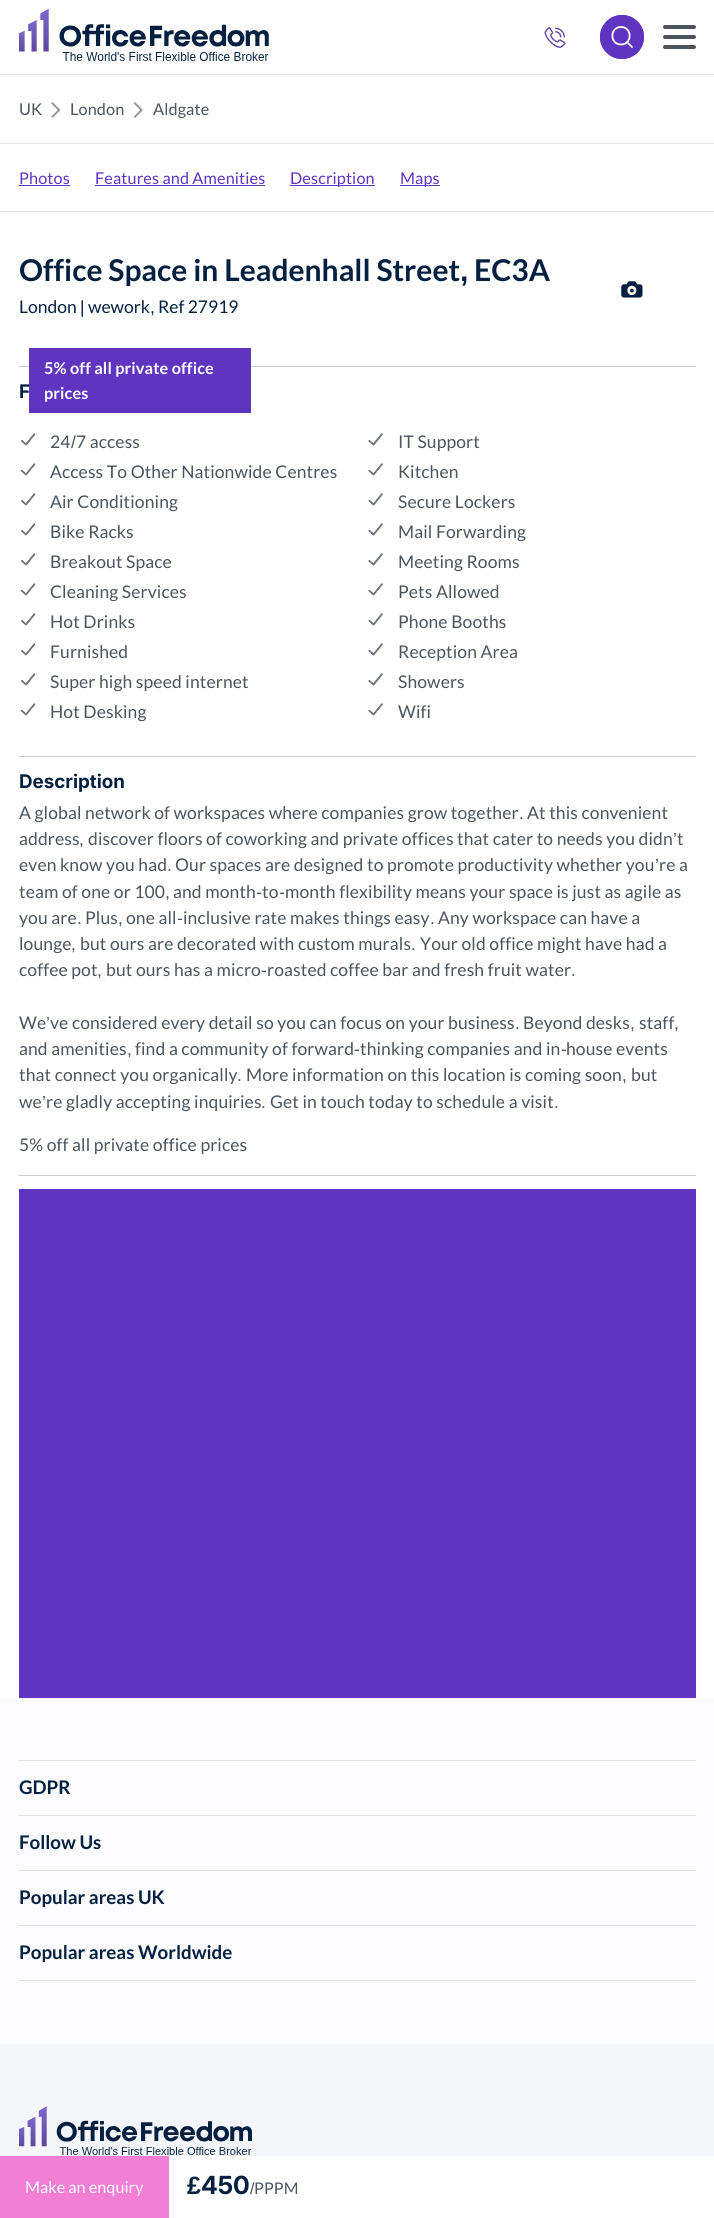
#include <cairo/cairo.h>
#include <math.h>
#include <stddef.h>

typedef struct { double x, y; const char *s; } line_t;
typedef struct { double x, y, w, h; unsigned color; } box_t;
static cairo_t *cr;

static void rgb(unsigned color)
{
	cairo_set_source_rgb(cr, (color >> 16) / 255.0, (color >> 8 & 255) / 255.0, (color & 255) / 255.0);
}

static void tracked(double x, double y, const char *s, double letter, double word)
{
	cairo_move_to(cr, x, y);
	while (*s) {
		char ch[5] = {0};
		int n = 0;
		do ch[n++] = *s++; while ((*s & 0xC0) == 0x80);
		cairo_show_text(cr, ch);
		cairo_rel_move_to(cr, letter + word * (*ch == ' '), 0);
	}
}

static void rrect(double x, double y, double w, double h, double r)
{
	cairo_new_sub_path(cr);
	cairo_arc(cr, x + w - r, y + h - r, r, 0, M_PI / 2);
	cairo_arc(cr, x + r, y + h - r, r, M_PI / 2, M_PI);
	cairo_arc(cr, x + r, y + r, r, M_PI, 1.5 * M_PI);
	cairo_arc(cr, x + w - r, y + r, r, 1.5 * M_PI, 2 * M_PI);
	cairo_close_path(cr);
}

static void image(const char *path, double x, double y, double w, double h)
{
	cairo_surface_t *image = cairo_image_surface_create_from_png(path);
	cairo_save(cr);
	cairo_set_source_surface(cr, image, x, y);
	cairo_rectangle(cr, x, y, w, h);
	cairo_fill(cr);
	cairo_restore(cr);
	cairo_surface_destroy(image);
}

int main(void) {
	cairo_surface_t *surface = cairo_image_surface_create(CAIRO_FORMAT_RGB24, 714, 2218);
	cr = cairo_create(surface);
	cairo_font_options_t *options = cairo_font_options_create();
	cairo_font_options_set_hint_metrics(options, CAIRO_HINT_METRICS_OFF);
	cairo_font_options_set_hint_style(options, CAIRO_HINT_STYLE_NONE);
	cairo_set_font_options(cr, options);
	cairo_set_miter_limit(cr, 4);
	rgb(0xffffff);
	cairo_paint(cr);
	rgb(0xe2e5e8);
	cairo_rectangle(cr, 0, 74, 714, 1);
	cairo_fill(cr);
	image("img/1.png", 19, 9, 250, 52);
	image("img/2.png", 544, 27, 22, 21);
	rgb(0x5f34c1);
	cairo_arc(cr, 622, 37, 22, 0, 2 * M_PI);
	cairo_fill(cr);
	cairo_new_path(cr);
	cairo_move_to(cr, 621, 44.5);
	cairo_curve_to(cr, 632.5, 44.5, 632.5, 27, 621, 27);
	cairo_curve_to(cr, 609.5, 27, 609.5, 44.5, 621, 44.5);
	cairo_close_path(cr);
	cairo_move_to(cr, 627, 42);
	cairo_line_to(cr, 632, 47);
	rgb(0xffffff);
	cairo_set_line_width(cr, 1.8);
	cairo_set_line_cap(cr, CAIRO_LINE_CAP_ROUND);
	cairo_set_line_join(cr, CAIRO_LINE_JOIN_ROUND);
	cairo_stroke(cr);
	cairo_arc(cr, 622, 37, 21.5, 0, 2 * M_PI);
	rgb(0x5f34c1);
	cairo_set_line_width(cr, 1);
	cairo_set_line_cap(cr, CAIRO_LINE_CAP_BUTT);
	cairo_set_line_join(cr, CAIRO_LINE_JOIN_MITER);
	cairo_stroke(cr);
	rgb(0x4c545d);
	rrect(663, 25, 33, 4, 2);
	cairo_fill(cr);
	rrect(663, 35, 33, 4, 2);
	cairo_fill(cr);
	rrect(663, 45, 33, 4, 2);
	cairo_fill(cr);
	image("img/3.png", 51, 101, 9, 18);
	image("img/4.png", 133, 101, 10, 18);
	{
		static const box_t items[] = {
			{0, 143, 714, 1, 0xe2e5e8},
			{0, 211, 714, 1, 0xe2e5e8},
			{19, 185, 51, 1, 0x5f34c1},
			{95, 185, 170, 1, 0x5f34c1},
			{290, 185, 85, 1, 0x5f34c1},
			{400, 185, 40, 1, 0x5f34c1},
		};
		for (size_t i = 0; i < sizeof items / sizeof *items; i++) {
			rgb(items[i].color);
			cairo_rectangle(cr, items[i].x, items[i].y, items[i].w, items[i].h);
			cairo_fill(cr);
		}
	}
	image("img/5.png", 621, 281, 22, 17);
	rgb(0xc8cbcf);
	cairo_rectangle(cr, 19, 366, 677, 1);
	cairo_fill(cr);
	rgb(0x5f34c1);
	cairo_rectangle(cr, 29, 348, 222, 65);
	cairo_fill(cr);
	image("img/6.png", 21, 433, 15, 13);
	image("img/7.png", 368, 433, 15, 13);
	image("img/6.png", 21, 463, 15, 13);
	image("img/7.png", 368, 463, 15, 13);
	image("img/6.png", 21, 493, 15, 13);
	image("img/7.png", 368, 493, 15, 13);
	image("img/6.png", 21, 523, 15, 13);
	image("img/7.png", 368, 523, 15, 13);
	image("img/6.png", 21, 553, 15, 13);
	image("img/7.png", 368, 553, 15, 13);
	image("img/6.png", 21, 583, 15, 13);
	image("img/7.png", 368, 583, 15, 13);
	image("img/6.png", 21, 613, 15, 13);
	image("img/7.png", 368, 613, 15, 13);
	image("img/6.png", 21, 643, 15, 13);
	image("img/7.png", 368, 643, 15, 13);
	image("img/6.png", 21, 673, 15, 13);
	image("img/7.png", 368, 673, 15, 13);
	image("img/6.png", 21, 703, 15, 13);
	image("img/7.png", 368, 703, 15, 13);
	{
		static const box_t items[] = {
			{19, 756, 677, 1, 0xc8cbcf},
			{19, 1175, 677, 1, 0xc8cbcf},
			{19, 1189, 677, 509, 0x5f34c1},
			{0, 1698, 714, 346, 0xfcfcfe},
			{19, 1760, 677, 1, 0xe3e3e3},
			{19, 1815, 677, 1, 0xe3e3e3},
			{19, 1870, 677, 1, 0xe3e3e3},
			{19, 1925, 677, 1, 0xe3e3e3},
			{19, 1980, 677, 1, 0xe3e3e3},
			{0, 2044, 714, 112, 0xf5f6fa},
		};
		for (size_t i = 0; i < sizeof items / sizeof *items; i++) {
			rgb(items[i].color);
			cairo_rectangle(cr, items[i].x, items[i].y, items[i].w, items[i].h);
			cairo_fill(cr);
		}
	}
	image("img/8.png", 19, 2106, 233, 49);
	rgb(0xf37ed5);
	cairo_rectangle(cr, 0, 2156, 169, 62);
	cairo_fill(cr);
	cairo_select_font_face(cr, "Lato", CAIRO_FONT_SLANT_NORMAL, CAIRO_FONT_WEIGHT_NORMAL);
	cairo_set_font_size(cr, 16.25);
	rgb(0x4c545d);
	{
		static const line_t items[] = {
			{19, 115, "UK"},
			{70, 115, "London"},
			{153, 115, "Aldgate"},
		};
		for (size_t i = 0; i < sizeof items / sizeof *items; i++) {
			tracked(items[i].x, items[i].y, items[i].s, 0.12, 0);
		}
	}
	rgb(0x5f34c1);
	{
		static const line_t items[] = {
			{19, 184, "Photos"},
			{95, 184, "Features and Amenities"},
			{290, 184, "Description"},
			{400, 184, "Maps"},
		};
		for (size_t i = 0; i < sizeof items / sizeof *items; i++) {
			tracked(items[i].x, items[i].y, items[i].s, 0.12, 0);
		}
	}
	cairo_select_font_face(cr, "Lato", CAIRO_FONT_SLANT_NORMAL, CAIRO_FONT_WEIGHT_BOLD);
	cairo_set_font_size(cr, 30);
	rgb(0x042040);
	cairo_move_to(cr, 19, 281);
	cairo_show_text(cr, "Office Space in Leadenhall Street");
	cairo_select_font_face(cr, "Liberation Sans", CAIRO_FONT_SLANT_NORMAL, CAIRO_FONT_WEIGHT_BOLD);
	cairo_move_to(cr, 460, 281);
	cairo_show_text(cr, ",");
	cairo_select_font_face(cr, "Lato", CAIRO_FONT_SLANT_NORMAL, CAIRO_FONT_WEIGHT_BOLD);
	cairo_move_to(cr, 474, 281);
	cairo_show_text(cr, "EC3A");
	cairo_select_font_face(cr, "Lato", CAIRO_FONT_SLANT_NORMAL, CAIRO_FONT_WEIGHT_NORMAL);
	cairo_set_font_size(cr, 17.5);
	cairo_move_to(cr, 19, 313);
	cairo_show_text(cr, "London");
	cairo_select_font_face(cr, "Liberation Sans", CAIRO_FONT_SLANT_NORMAL, CAIRO_FONT_WEIGHT_NORMAL);
	cairo_move_to(cr, 80, 313);
	cairo_show_text(cr, "|");
	cairo_select_font_face(cr, "Lato", CAIRO_FONT_SLANT_NORMAL, CAIRO_FONT_WEIGHT_NORMAL);
	cairo_move_to(cr, 88, 313);
	cairo_show_text(cr, "wework");
	cairo_select_font_face(cr, "Liberation Sans", CAIRO_FONT_SLANT_NORMAL, CAIRO_FONT_WEIGHT_NORMAL);
	cairo_move_to(cr, 150, 313);
	cairo_show_text(cr, ",");
	cairo_select_font_face(cr, "Lato", CAIRO_FONT_SLANT_NORMAL, CAIRO_FONT_WEIGHT_NORMAL);
	cairo_move_to(cr, 158, 313);
	cairo_show_text(cr, "Ref 27919");
	cairo_select_font_face(cr, "Lato", CAIRO_FONT_SLANT_NORMAL, CAIRO_FONT_WEIGHT_BOLD);
	cairo_set_font_size(cr, 16.25);
	rgb(0xffffff);
	tracked(44, 374, "5% off all private office", 0.12, 0);
	tracked(44, 399, "prices", 0.12, 0);
	cairo_select_font_face(cr, "Inter", CAIRO_FONT_SLANT_NORMAL, CAIRO_FONT_WEIGHT_BOLD);
	cairo_set_font_size(cr, 18.75);
	rgb(0x042040);
	cairo_move_to(cr, 19, 398);
	cairo_show_text(cr, "F");
	cairo_select_font_face(cr, "Lato", CAIRO_FONT_SLANT_NORMAL, CAIRO_FONT_WEIGHT_NORMAL);
	cairo_set_font_size(cr, 17.5);
	rgb(0x4c545d);
	tracked(50, 448, "24", 0.12, 0);
	cairo_select_font_face(cr, "Liberation Sans", CAIRO_FONT_SLANT_NORMAL, CAIRO_FONT_WEIGHT_NORMAL);
	tracked(71, 448, "/", 0.12, 0);
	cairo_select_font_face(cr, "Lato", CAIRO_FONT_SLANT_NORMAL, CAIRO_FONT_WEIGHT_NORMAL);
	{
		static const line_t items[] = {
			{76, 448, "7 access"},
			{398, 448, "IT Support"},
			{50, 478, "Access To Other Nationwide Centres"},
			{398, 478, "Kitchen"},
			{50, 508, "Air Conditioning"},
			{398, 508, "Secure Lockers"},
			{50, 538, "Bike Racks"},
			{398, 538, "Mail Forwarding"},
			{50, 568, "Breakout Space"},
			{398, 568, "Meeting Rooms"},
			{50, 598, "Cleaning Services"},
			{398, 598, "Pets Allowed"},
			{50, 628, "Hot Drinks"},
			{398, 628, "Phone Booths"},
			{50, 658, "Furnished"},
			{398, 658, "Reception Area"},
			{50, 688, "Super high speed internet"},
			{398, 688, "Showers"},
			{50, 718, "Hot Desking"},
			{398, 718, "Wifi"},
		};
		for (size_t i = 0; i < sizeof items / sizeof *items; i++) {
			tracked(items[i].x, items[i].y, items[i].s, 0.12, 0);
		}
	}
	cairo_select_font_face(cr, "Inter", CAIRO_FONT_SLANT_NORMAL, CAIRO_FONT_WEIGHT_BOLD);
	cairo_set_font_size(cr, 18.75);
	rgb(0x042040);
	cairo_move_to(cr, 19, 788);
	cairo_show_text(cr, "Description");
	cairo_select_font_face(cr, "Lato", CAIRO_FONT_SLANT_NORMAL, CAIRO_FONT_WEIGHT_NORMAL);
	cairo_set_font_size(cr, 17.5);
	rgb(0x4c545d);
	tracked(19, 819, "A global network of workspaces where companies grow together", 0.12, 0);
	cairo_select_font_face(cr, "Liberation Sans", CAIRO_FONT_SLANT_NORMAL, CAIRO_FONT_WEIGHT_NORMAL);
	tracked(519, 819, ".", 0.12, 0);
	cairo_select_font_face(cr, "Lato", CAIRO_FONT_SLANT_NORMAL, CAIRO_FONT_WEIGHT_NORMAL);
	tracked(527, 819, "At this convenient", 0.12, 0);
	tracked(19, 845, "address", 0.12, 0);
	cairo_select_font_face(cr, "Liberation Sans", CAIRO_FONT_SLANT_NORMAL, CAIRO_FONT_WEIGHT_NORMAL);
	tracked(79, 845, ",", 0.12, 0);
	cairo_select_font_face(cr, "Lato", CAIRO_FONT_SLANT_NORMAL, CAIRO_FONT_WEIGHT_NORMAL);
	tracked(88, 845, "discover floors of coworking and private offices that cater to needs you didn", 0.12, 0);
	cairo_select_font_face(cr, "Liberation Sans", CAIRO_FONT_SLANT_NORMAL, CAIRO_FONT_WEIGHT_NORMAL);
	tracked(673, 845, "’", 0.12, 0);
	cairo_select_font_face(cr, "Lato", CAIRO_FONT_SLANT_NORMAL, CAIRO_FONT_WEIGHT_NORMAL);
	{
		static const line_t items[] = {
			{677, 845, "t"},
			{19, 871, "even know you had"},
			{175, 871, "Our spaces are designed to promote productivity whether you"},
		};
		for (size_t i = 0; i < sizeof items / sizeof *items; i++) {
			tracked(items[i].x, items[i].y, items[i].s, 0.12, 0);
		}
	}
	cairo_select_font_face(cr, "Liberation Sans", CAIRO_FONT_SLANT_NORMAL, CAIRO_FONT_WEIGHT_NORMAL);
	tracked(655, 871, "’", 0.12, 0);
	tracked(167, 871, ".", 0.12, 0);
	cairo_select_font_face(cr, "Lato", CAIRO_FONT_SLANT_NORMAL, CAIRO_FONT_WEIGHT_NORMAL);
	{
		static const line_t items[] = {
			{659, 871, "re a"},
			{19, 898, "team of one or 100"},
			{173, 898, "and month"},
		};
		for (size_t i = 0; i < sizeof items / sizeof *items; i++) {
			tracked(items[i].x, items[i].y, items[i].s, 0.12, 0);
		}
	}
	cairo_select_font_face(cr, "Liberation Sans", CAIRO_FONT_SLANT_NORMAL, CAIRO_FONT_WEIGHT_NORMAL);
	tracked(256, 898, "-", 0.12, 0);
	cairo_select_font_face(cr, "Lato", CAIRO_FONT_SLANT_NORMAL, CAIRO_FONT_WEIGHT_NORMAL);
	tracked(262, 898, "to", 0.12, 0);
	cairo_select_font_face(cr, "Liberation Sans", CAIRO_FONT_SLANT_NORMAL, CAIRO_FONT_WEIGHT_NORMAL);
	tracked(279, 898, "-", 0.12, 0);
	cairo_select_font_face(cr, "Lato", CAIRO_FONT_SLANT_NORMAL, CAIRO_FONT_WEIGHT_NORMAL);
	tracked(285, 898, "month flexibility means your space is just as agile as", 0.12, 0);
	cairo_select_font_face(cr, "Liberation Sans", CAIRO_FONT_SLANT_NORMAL, CAIRO_FONT_WEIGHT_NORMAL);
	tracked(165, 898, ",", 0.12, 0);
	cairo_select_font_face(cr, "Lato", CAIRO_FONT_SLANT_NORMAL, CAIRO_FONT_WEIGHT_NORMAL);
	{
		static const line_t items[] = {
			{19, 924, "you are"},
			{85, 924, "Plus"},
			{126, 924, "one all"},
		};
		for (size_t i = 0; i < sizeof items / sizeof *items; i++) {
			tracked(items[i].x, items[i].y, items[i].s, 0.12, 0);
		}
	}
	cairo_select_font_face(cr, "Liberation Sans", CAIRO_FONT_SLANT_NORMAL, CAIRO_FONT_WEIGHT_NORMAL);
	tracked(177, 924, "-", 0.12, 0);
	cairo_select_font_face(cr, "Lato", CAIRO_FONT_SLANT_NORMAL, CAIRO_FONT_WEIGHT_NORMAL);
	tracked(183, 924, "inclusive rate makes things easy", 0.12, 0);
	tracked(438, 924, "Any workspace can have a", 0.12, 0);
	cairo_select_font_face(cr, "Liberation Sans", CAIRO_FONT_SLANT_NORMAL, CAIRO_FONT_WEIGHT_NORMAL);
	{
		static const line_t items[] = {
			{77, 924, "."},
			{118, 924, ","},
			{430, 924, "."},
		};
		for (size_t i = 0; i < sizeof items / sizeof *items; i++) {
			tracked(items[i].x, items[i].y, items[i].s, 0.12, 0);
		}
	}
	cairo_select_font_face(cr, "Lato", CAIRO_FONT_SLANT_NORMAL, CAIRO_FONT_WEIGHT_NORMAL);
	tracked(19, 950, "lounge", 0.12, 0);
	cairo_select_font_face(cr, "Liberation Sans", CAIRO_FONT_SLANT_NORMAL, CAIRO_FONT_WEIGHT_NORMAL);
	tracked(71, 950, ",", 0.12, 0);
	cairo_select_font_face(cr, "Lato", CAIRO_FONT_SLANT_NORMAL, CAIRO_FONT_WEIGHT_NORMAL);
	tracked(80, 950, "but ours are decorated with custom murals", 0.12, 0);
	cairo_select_font_face(cr, "Liberation Sans", CAIRO_FONT_SLANT_NORMAL, CAIRO_FONT_WEIGHT_NORMAL);
	tracked(411, 950, ".", 0.12, 0);
	cairo_select_font_face(cr, "Lato", CAIRO_FONT_SLANT_NORMAL, CAIRO_FONT_WEIGHT_NORMAL);
	{
		static const line_t items[] = {
			{420, 950, "Your old office might have had a"},
			{19, 976, "coffee pot"},
			{106, 976, "but ours has a micro"},
		};
		for (size_t i = 0; i < sizeof items / sizeof *items; i++) {
			tracked(items[i].x, items[i].y, items[i].s, 0.12, 0);
		}
	}
	cairo_select_font_face(cr, "Liberation Sans", CAIRO_FONT_SLANT_NORMAL, CAIRO_FONT_WEIGHT_NORMAL);
	tracked(261, 976, "-", 0.12, 0);
	cairo_select_font_face(cr, "Lato", CAIRO_FONT_SLANT_NORMAL, CAIRO_FONT_WEIGHT_NORMAL);
	tracked(267, 976, "roasted coffee bar and fresh fruit water", 0.12, 0);
	cairo_select_font_face(cr, "Liberation Sans", CAIRO_FONT_SLANT_NORMAL, CAIRO_FONT_WEIGHT_NORMAL);
	tracked(97, 976, ",", 0.12, 0);
	tracked(571, 976, ".", 0.12, 0);
	cairo_select_font_face(cr, "Lato", CAIRO_FONT_SLANT_NORMAL, CAIRO_FONT_WEIGHT_NORMAL);
	tracked(19, 1029, "We", 0.12, 0);
	cairo_select_font_face(cr, "Liberation Sans", CAIRO_FONT_SLANT_NORMAL, CAIRO_FONT_WEIGHT_NORMAL);
	tracked(46, 1029, "’", 0.12, 0);
	cairo_select_font_face(cr, "Lato", CAIRO_FONT_SLANT_NORMAL, CAIRO_FONT_WEIGHT_NORMAL);
	tracked(50, 1029, "ve considered every detail so you can focus on your business", 0.12, 0);
	cairo_select_font_face(cr, "Liberation Sans", CAIRO_FONT_SLANT_NORMAL, CAIRO_FONT_WEIGHT_NORMAL);
	tracked(515, 1029, ".", 0.12, 0);
	cairo_select_font_face(cr, "Lato", CAIRO_FONT_SLANT_NORMAL, CAIRO_FONT_WEIGHT_NORMAL);
	tracked(523, 1029, "Beyond desks", 0.12, 0);
	cairo_select_font_face(cr, "Liberation Sans", CAIRO_FONT_SLANT_NORMAL, CAIRO_FONT_WEIGHT_NORMAL);
	tracked(630, 1029, ",", 0.12, 0);
	cairo_select_font_face(cr, "Lato", CAIRO_FONT_SLANT_NORMAL, CAIRO_FONT_WEIGHT_NORMAL);
	tracked(639, 1029, "staff", 0.12, 0);
	cairo_select_font_face(cr, "Liberation Sans", CAIRO_FONT_SLANT_NORMAL, CAIRO_FONT_WEIGHT_NORMAL);
	tracked(674, 1029, ",", 0.12, 0);
	cairo_select_font_face(cr, "Lato", CAIRO_FONT_SLANT_NORMAL, CAIRO_FONT_WEIGHT_NORMAL);
	tracked(19, 1055, "and amenities", 0.12, 0);
	tracked(135, 1055, "find a community of forward", 0.12, 0);
	cairo_select_font_face(cr, "Liberation Sans", CAIRO_FONT_SLANT_NORMAL, CAIRO_FONT_WEIGHT_NORMAL);
	tracked(354, 1055, "-", 0.12, 0);
	cairo_select_font_face(cr, "Lato", CAIRO_FONT_SLANT_NORMAL, CAIRO_FONT_WEIGHT_NORMAL);
	tracked(360, 1055, "thinking companies and in", 0.12, 0);
	cairo_select_font_face(cr, "Liberation Sans", CAIRO_FONT_SLANT_NORMAL, CAIRO_FONT_WEIGHT_NORMAL);
	tracked(561, 1055, "-", 0.12, 0);
	cairo_select_font_face(cr, "Lato", CAIRO_FONT_SLANT_NORMAL, CAIRO_FONT_WEIGHT_NORMAL);
	tracked(566, 1055, "house events", 0.12, 0);
	cairo_select_font_face(cr, "Liberation Sans", CAIRO_FONT_SLANT_NORMAL, CAIRO_FONT_WEIGHT_NORMAL);
	tracked(127, 1055, ",", 0.12, 0);
	cairo_select_font_face(cr, "Lato", CAIRO_FONT_SLANT_NORMAL, CAIRO_FONT_WEIGHT_NORMAL);
	tracked(19, 1081, "that connect you organically", 0.12, 0);
	cairo_select_font_face(cr, "Liberation Sans", CAIRO_FONT_SLANT_NORMAL, CAIRO_FONT_WEIGHT_NORMAL);
	tracked(237, 1081, ".", 0.12, 0);
	cairo_select_font_face(cr, "Lato", CAIRO_FONT_SLANT_NORMAL, CAIRO_FONT_WEIGHT_NORMAL);
	tracked(246, 1081, "More information on this location is coming soon", 0.12, 0);
	cairo_select_font_face(cr, "Liberation Sans", CAIRO_FONT_SLANT_NORMAL, CAIRO_FONT_WEIGHT_NORMAL);
	tracked(622, 1081, ",", 0.12, 0);
	cairo_select_font_face(cr, "Lato", CAIRO_FONT_SLANT_NORMAL, CAIRO_FONT_WEIGHT_NORMAL);
	tracked(631, 1081, "but", 0.12, 0);
	tracked(19, 1108, "we", 0.12, 0);
	cairo_select_font_face(cr, "Liberation Sans", CAIRO_FONT_SLANT_NORMAL, CAIRO_FONT_WEIGHT_NORMAL);
	tracked(42, 1108, "’", 0.12, 0);
	cairo_select_font_face(cr, "Lato", CAIRO_FONT_SLANT_NORMAL, CAIRO_FONT_WEIGHT_NORMAL);
	tracked(46, 1108, "re gladly accepting inquiries", 0.12, 0);
	cairo_select_font_face(cr, "Liberation Sans", CAIRO_FONT_SLANT_NORMAL, CAIRO_FONT_WEIGHT_NORMAL);
	tracked(261, 1108, ".", 0.12, 0);
	cairo_select_font_face(cr, "Lato", CAIRO_FONT_SLANT_NORMAL, CAIRO_FONT_WEIGHT_NORMAL);
	tracked(270, 1108, "Get in touch today to schedule a visit", 0.12, 0);
	cairo_select_font_face(cr, "Liberation Sans", CAIRO_FONT_SLANT_NORMAL, CAIRO_FONT_WEIGHT_NORMAL);
	tracked(554, 1108, ".", 0.12, 0);
	cairo_select_font_face(cr, "Lato", CAIRO_FONT_SLANT_NORMAL, CAIRO_FONT_WEIGHT_NORMAL);
	tracked(19, 1151, "5% off all private office prices", 0.12, 0);
	cairo_select_font_face(cr, "Lato", CAIRO_FONT_SLANT_NORMAL, CAIRO_FONT_WEIGHT_BOLD);
	cairo_set_font_size(cr, 18.75);
	rgb(0x042040);
	{
		static const line_t items[] = {
			{19, 1794, "GDPR"},
			{19, 1849, "Follow Us"},
			{19, 1904, "Popular areas UK"},
			{19, 1959, "Popular areas Worldwide"},
		};
		for (size_t i = 0; i < sizeof items / sizeof *items; i++) {
			cairo_move_to(cr, items[i].x, items[i].y);
			cairo_show_text(cr, items[i].s);
		}
	}
	cairo_select_font_face(cr, "Lato", CAIRO_FONT_SLANT_NORMAL, CAIRO_FONT_WEIGHT_NORMAL);
	cairo_set_font_size(cr, 16.25);
	rgb(0xffffff);
	cairo_move_to(cr, 25, 2193);
	cairo_show_text(cr, "Make an enquiry");
	cairo_select_font_face(cr, "Liberation Sans", CAIRO_FONT_SLANT_NORMAL, CAIRO_FONT_WEIGHT_BOLD);
	cairo_set_font_size(cr, 25);
	rgb(0x042040);
	cairo_move_to(cr, 187, 2194);
	cairo_show_text(cr, "£");
	cairo_select_font_face(cr, "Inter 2", CAIRO_FONT_SLANT_NORMAL, CAIRO_FONT_WEIGHT_BOLD);
	cairo_move_to(cr, 201, 2194);
	cairo_show_text(cr, "450");
	cairo_select_font_face(cr, "Liberation Sans", CAIRO_FONT_SLANT_NORMAL, CAIRO_FONT_WEIGHT_NORMAL);
	cairo_set_font_size(cr, 16);
	rgb(0x4c545d);
	tracked(250, 2194, "/", 0.12, 0);
	cairo_select_font_face(cr, "Lato", CAIRO_FONT_SLANT_NORMAL, CAIRO_FONT_WEIGHT_NORMAL);
	tracked(254, 2194, "PPPM", 0.12, 0);
	cairo_surface_write_to_png(surface, "page.png");
	cairo_font_options_destroy(options);
	cairo_destroy(cr);
	cairo_surface_destroy(surface);
	return 0;
}
